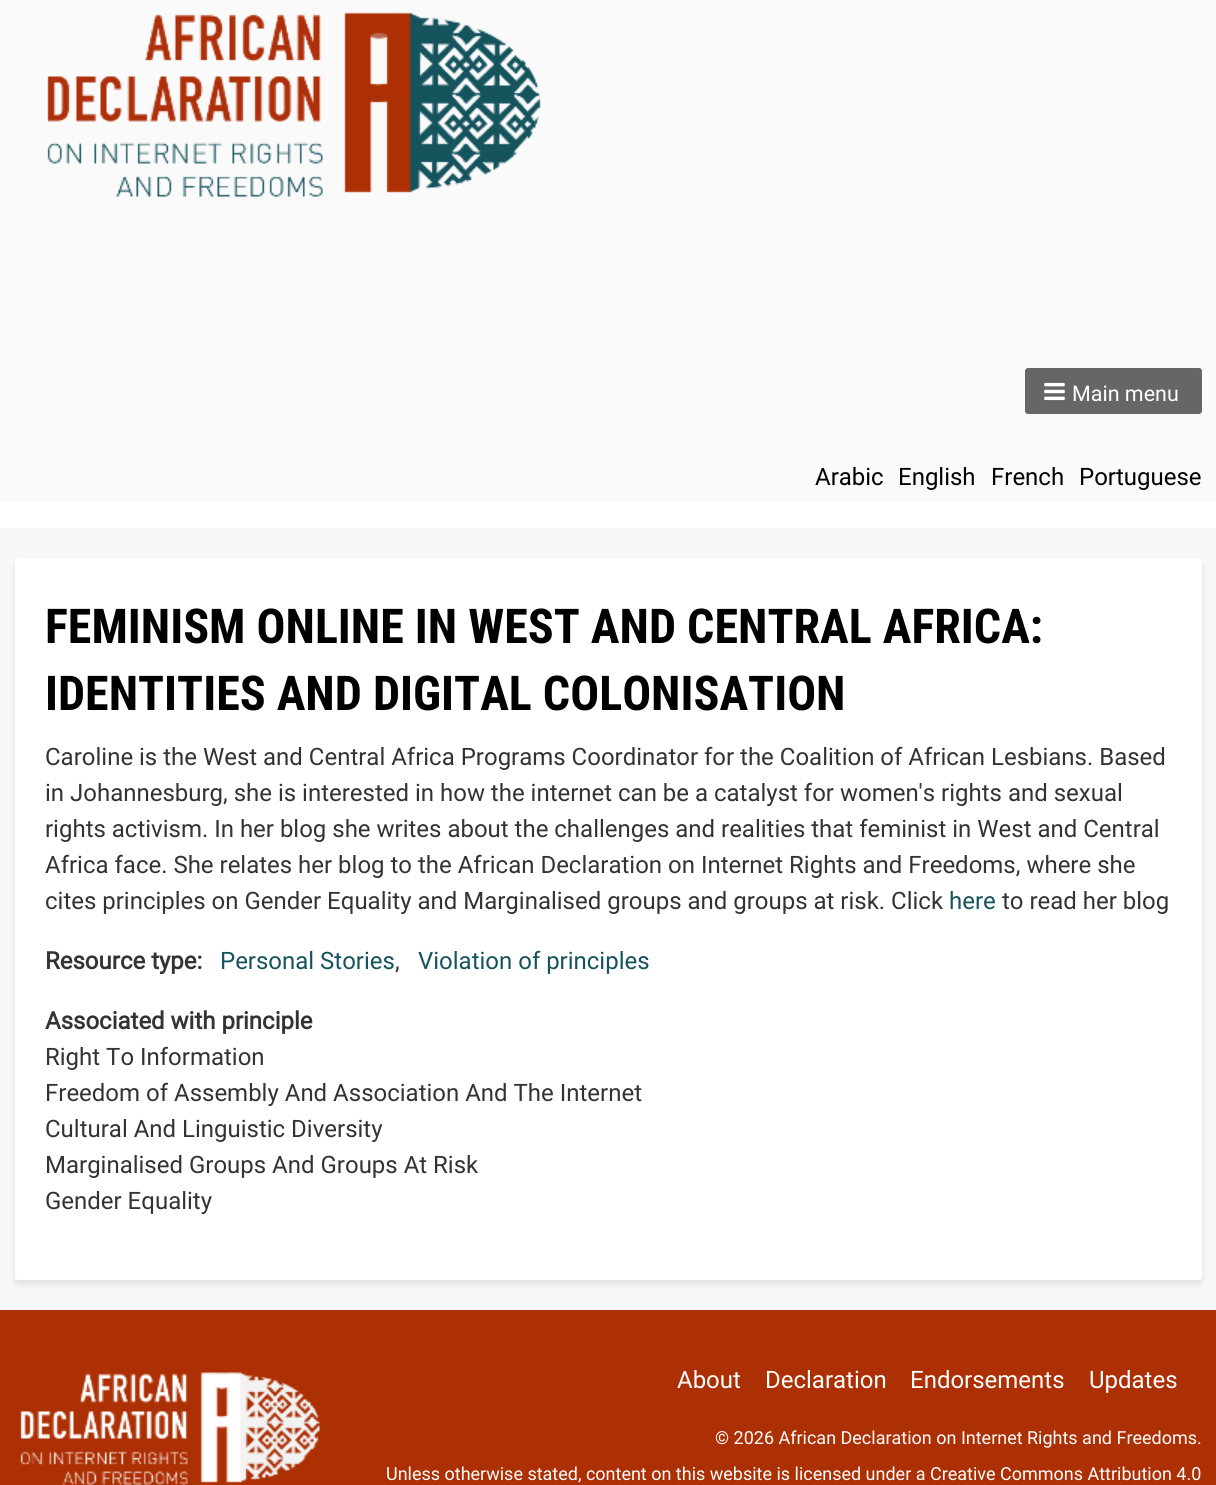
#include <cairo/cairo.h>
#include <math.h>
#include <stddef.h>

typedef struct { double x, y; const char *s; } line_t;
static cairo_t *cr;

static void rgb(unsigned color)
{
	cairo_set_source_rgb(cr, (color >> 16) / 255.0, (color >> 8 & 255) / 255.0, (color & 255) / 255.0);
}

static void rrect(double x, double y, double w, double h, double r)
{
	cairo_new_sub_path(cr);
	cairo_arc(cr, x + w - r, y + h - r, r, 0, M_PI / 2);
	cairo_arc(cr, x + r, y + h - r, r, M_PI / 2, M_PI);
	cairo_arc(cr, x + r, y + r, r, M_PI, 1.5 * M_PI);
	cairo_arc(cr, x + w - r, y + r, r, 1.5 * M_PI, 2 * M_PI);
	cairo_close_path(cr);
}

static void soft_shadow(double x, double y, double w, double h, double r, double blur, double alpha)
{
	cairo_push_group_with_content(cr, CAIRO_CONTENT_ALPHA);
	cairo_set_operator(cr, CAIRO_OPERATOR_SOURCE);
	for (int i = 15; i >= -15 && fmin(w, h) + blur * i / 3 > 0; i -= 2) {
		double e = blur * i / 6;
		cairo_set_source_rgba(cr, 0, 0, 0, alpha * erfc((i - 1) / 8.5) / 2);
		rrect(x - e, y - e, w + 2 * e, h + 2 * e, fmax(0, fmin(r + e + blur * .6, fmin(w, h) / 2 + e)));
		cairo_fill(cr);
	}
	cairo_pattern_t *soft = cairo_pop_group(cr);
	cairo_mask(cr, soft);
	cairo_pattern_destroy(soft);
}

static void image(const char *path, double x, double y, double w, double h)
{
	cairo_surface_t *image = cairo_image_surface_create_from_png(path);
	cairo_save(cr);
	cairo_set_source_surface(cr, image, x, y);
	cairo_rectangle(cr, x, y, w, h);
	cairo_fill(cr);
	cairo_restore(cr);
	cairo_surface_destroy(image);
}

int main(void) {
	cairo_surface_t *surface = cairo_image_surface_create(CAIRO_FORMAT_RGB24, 1216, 1485);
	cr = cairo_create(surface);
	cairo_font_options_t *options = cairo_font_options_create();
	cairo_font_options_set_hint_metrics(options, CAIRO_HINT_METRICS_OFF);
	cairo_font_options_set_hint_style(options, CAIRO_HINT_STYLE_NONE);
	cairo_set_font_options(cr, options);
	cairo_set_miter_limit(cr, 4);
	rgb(0xf7f7f7);
	cairo_paint(cr);
	rgb(0xffffff);
	cairo_rectangle(cr, 0, 503, 1216, 25);
	cairo_fill(cr);
	rgb(0xfafafa);
	cairo_rectangle(cr, 0, 0, 1216, 503);
	cairo_fill(cr);
	image("img/1.png", 47, 12, 494, 185);
	rgb(0x666666);
	rrect(1025, 368, 177, 46, 3);
	cairo_fill(cr);
	image("img/2.png", 1044, 382, 21, 19);
	rgb(0x000000);
	soft_shadow(15, 563, 1187, 721, 3, 3, 0.1);
	rgb(0xffffff);
	rrect(15, 558, 1187, 722, 3);
	cairo_fill(cr);
	rgb(0xad2f04);
	cairo_rectangle(cr, 0, 1310, 1216, 175);
	cairo_fill(cr);
	image("img/3.png", 20, 1372, 301, 113);
	cairo_select_font_face(cr, "Roboto", CAIRO_FONT_SLANT_NORMAL, CAIRO_FONT_WEIGHT_NORMAL);
	cairo_set_font_size(cr, 21.5);
	rgb(0xffffff);
	cairo_move_to(cr, 1072, 401);
	cairo_show_text(cr, "Main menu");
	cairo_set_font_size(cr, 24);
	rgb(0x000000);
	{
		static const line_t items[] = {
			{815, 485, "Arabic"},
			{898, 485, "English"},
			{991, 485, "French"},
			{1079, 485, "Portuguese"},
		};
		for (size_t i = 0; i < sizeof items / sizeof *items; i++) {
			cairo_move_to(cr, items[i].x, items[i].y);
			cairo_show_text(cr, items[i].s);
		}
	}
	cairo_select_font_face(cr, "Roboto Condensed", CAIRO_FONT_SLANT_NORMAL, CAIRO_FONT_WEIGHT_BOLD);
	cairo_set_font_size(cr, 48);
	cairo_move_to(cr, 45, 643);
	cairo_show_text(cr, "FEMINISM ONLINE IN WEST AND CENTRAL AFRICA:");
	cairo_move_to(cr, 45, 710);
	cairo_show_text(cr, "IDENTITIES AND DIGITAL COLONISATION");
	cairo_select_font_face(cr, "Roboto", CAIRO_FONT_SLANT_NORMAL, CAIRO_FONT_WEIGHT_NORMAL);
	cairo_set_font_size(cr, 24);
	rgb(0x333333);
	{
		static const line_t items[] = {
			{45, 765, "Caroline is the West and Central Africa Programs Coordinator for the Coalition of African Lesbians. Based"},
			{45, 801, "in Johannesburg, she is interested in how the internet can be a catalyst for women's rights and sexual"},
			{45, 837, "rights activism. In her blog she writes about the challenges and realities that feminist in West and Central"},
			{45, 873, "Africa face. She relates her blog to the African Declaration on Internet Rights and Freedoms, where she"},
			{45, 909, "cites principles on Gender Equality and Marginalised groups and groups at risk. Click"},
		};
		for (size_t i = 0; i < sizeof items / sizeof *items; i++) {
			cairo_move_to(cr, items[i].x, items[i].y);
			cairo_show_text(cr, items[i].s);
		}
	}
	rgb(0x15535d);
	cairo_move_to(cr, 949, 909);
	cairo_show_text(cr, "here");
	rgb(0x333333);
	cairo_move_to(cr, 1002, 909);
	cairo_show_text(cr, "to read her blog");
	cairo_select_font_face(cr, "Roboto", CAIRO_FONT_SLANT_NORMAL, CAIRO_FONT_WEIGHT_BOLD);
	cairo_move_to(cr, 45, 969);
	cairo_show_text(cr, "Resource type:");
	cairo_select_font_face(cr, "Roboto", CAIRO_FONT_SLANT_NORMAL, CAIRO_FONT_WEIGHT_NORMAL);
	rgb(0x15535d);
	cairo_move_to(cr, 220, 969);
	cairo_show_text(cr, "Personal Stories");
	rgb(0x333333);
	cairo_move_to(cr, 395, 969);
	cairo_show_text(cr, ",");
	rgb(0x15535d);
	cairo_move_to(cr, 418, 969);
	cairo_show_text(cr, "Violation of principles");
	cairo_select_font_face(cr, "Roboto", CAIRO_FONT_SLANT_NORMAL, CAIRO_FONT_WEIGHT_BOLD);
	rgb(0x333333);
	cairo_move_to(cr, 45, 1029);
	cairo_show_text(cr, "Associated with principle");
	cairo_select_font_face(cr, "Roboto", CAIRO_FONT_SLANT_NORMAL, CAIRO_FONT_WEIGHT_NORMAL);
	{
		static const line_t items[] = {
			{45, 1065, "Right To Information"},
			{45, 1101, "Freedom of Assembly And Association And The Internet"},
			{45, 1137, "Cultural And Linguistic Diversity"},
			{45, 1173, "Marginalised Groups And Groups At Risk"},
			{45, 1209, "Gender Equality"},
		};
		for (size_t i = 0; i < sizeof items / sizeof *items; i++) {
			cairo_move_to(cr, items[i].x, items[i].y);
			cairo_show_text(cr, items[i].s);
		}
	}
	rgb(0xffffff);
	{
		static const line_t items[] = {
			{677, 1388, "About"},
			{765, 1388, "Declaration"},
			{910, 1388, "Endorsements"},
			{1089, 1388, "Updates"},
		};
		for (size_t i = 0; i < sizeof items / sizeof *items; i++) {
			cairo_move_to(cr, items[i].x, items[i].y);
			cairo_show_text(cr, items[i].s);
		}
	}
	cairo_set_font_size(cr, 18);
	cairo_move_to(cr, 715, 1444);
	cairo_show_text(cr, "© 2026 African Declaration on Internet Rights and Freedoms.");
	cairo_move_to(cr, 386, 1480);
	cairo_show_text(cr, "Unless otherwise stated, content on this website is licensed under a Creative Commons Attribution 4.0");
	cairo_surface_write_to_png(surface, "page.png");
	cairo_font_options_destroy(options);
	cairo_destroy(cr);
	cairo_surface_destroy(surface);
	return 0;
}
